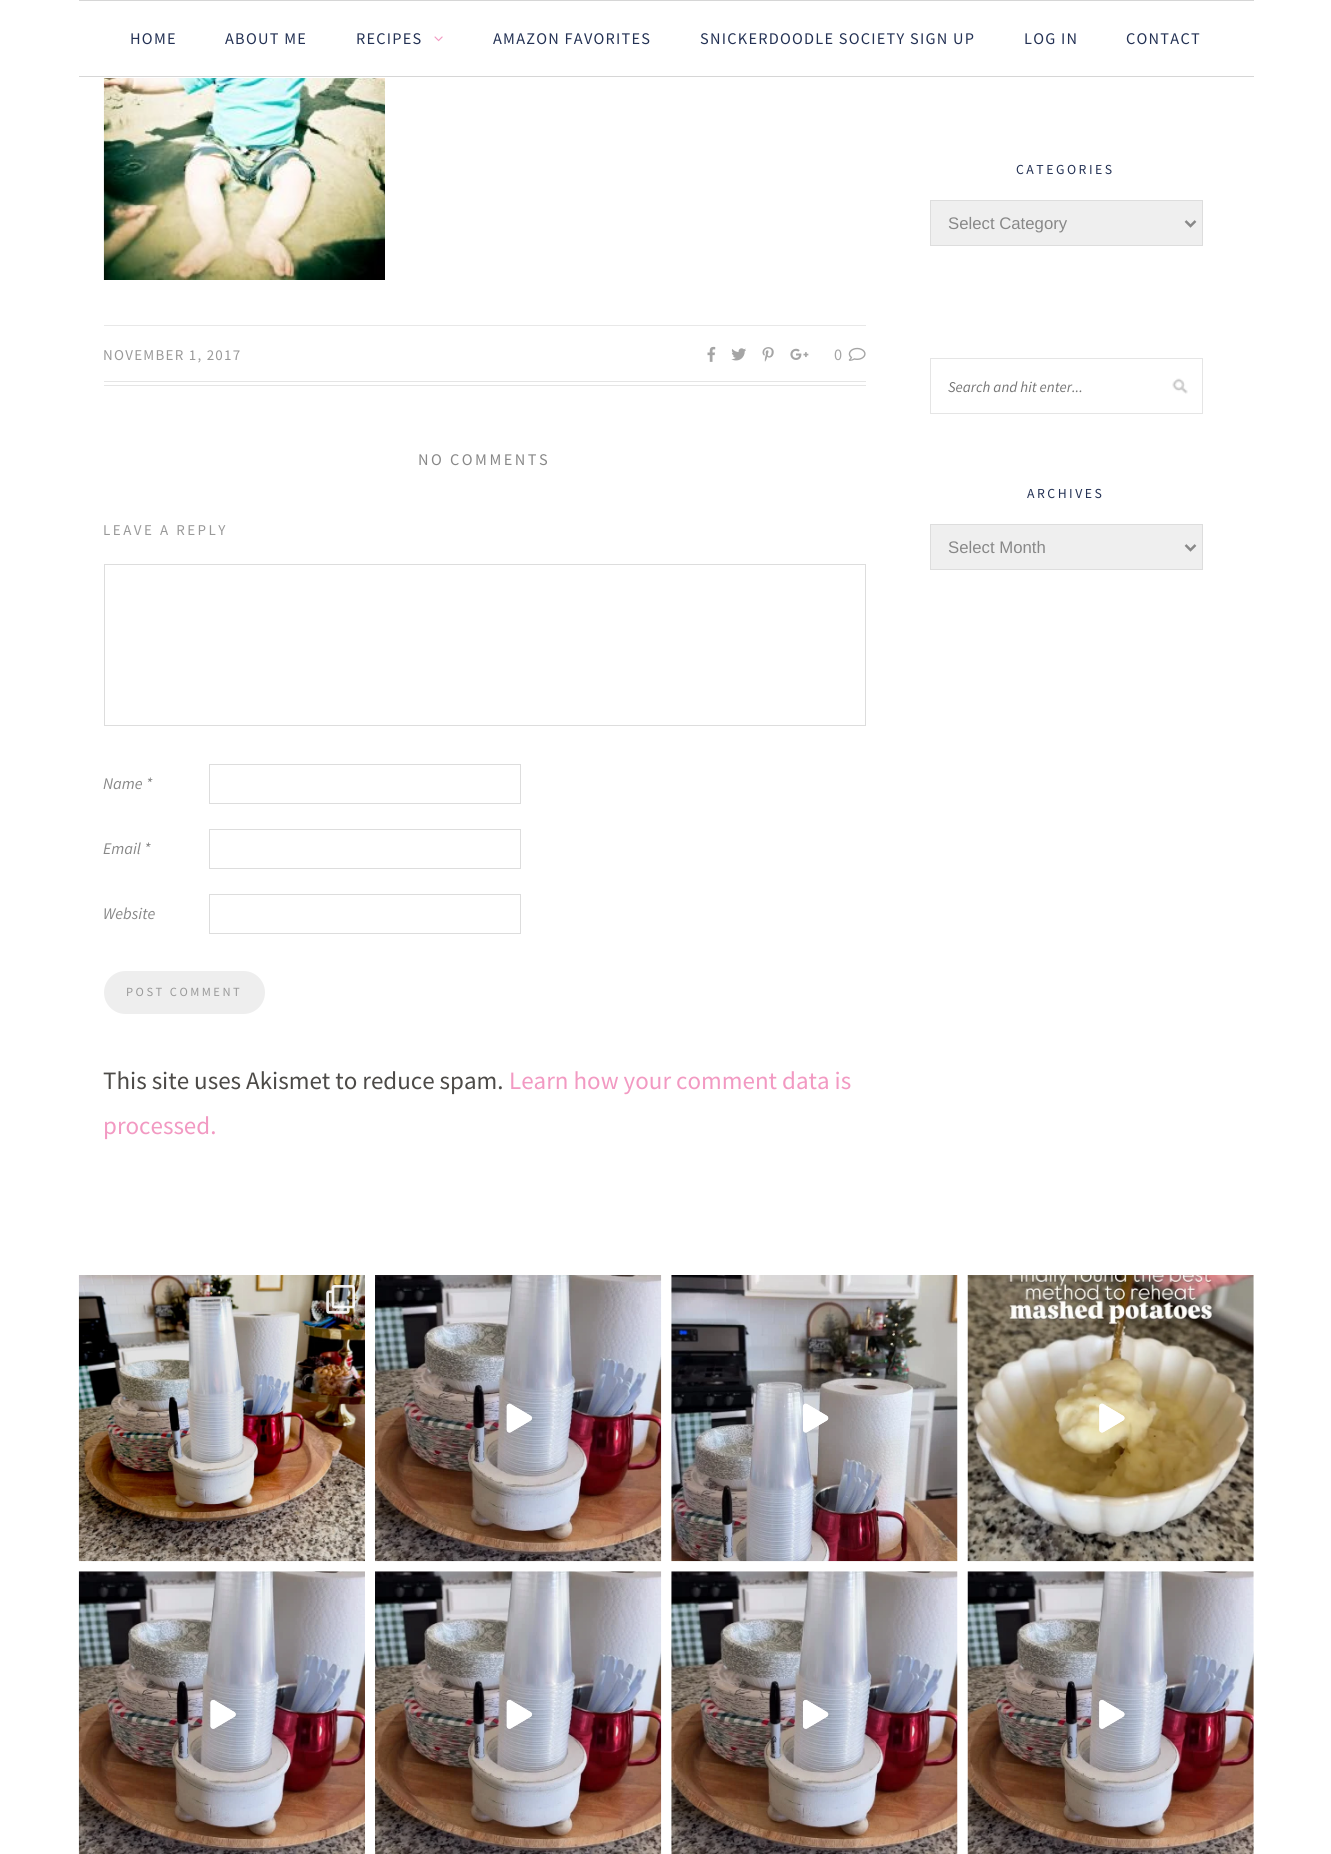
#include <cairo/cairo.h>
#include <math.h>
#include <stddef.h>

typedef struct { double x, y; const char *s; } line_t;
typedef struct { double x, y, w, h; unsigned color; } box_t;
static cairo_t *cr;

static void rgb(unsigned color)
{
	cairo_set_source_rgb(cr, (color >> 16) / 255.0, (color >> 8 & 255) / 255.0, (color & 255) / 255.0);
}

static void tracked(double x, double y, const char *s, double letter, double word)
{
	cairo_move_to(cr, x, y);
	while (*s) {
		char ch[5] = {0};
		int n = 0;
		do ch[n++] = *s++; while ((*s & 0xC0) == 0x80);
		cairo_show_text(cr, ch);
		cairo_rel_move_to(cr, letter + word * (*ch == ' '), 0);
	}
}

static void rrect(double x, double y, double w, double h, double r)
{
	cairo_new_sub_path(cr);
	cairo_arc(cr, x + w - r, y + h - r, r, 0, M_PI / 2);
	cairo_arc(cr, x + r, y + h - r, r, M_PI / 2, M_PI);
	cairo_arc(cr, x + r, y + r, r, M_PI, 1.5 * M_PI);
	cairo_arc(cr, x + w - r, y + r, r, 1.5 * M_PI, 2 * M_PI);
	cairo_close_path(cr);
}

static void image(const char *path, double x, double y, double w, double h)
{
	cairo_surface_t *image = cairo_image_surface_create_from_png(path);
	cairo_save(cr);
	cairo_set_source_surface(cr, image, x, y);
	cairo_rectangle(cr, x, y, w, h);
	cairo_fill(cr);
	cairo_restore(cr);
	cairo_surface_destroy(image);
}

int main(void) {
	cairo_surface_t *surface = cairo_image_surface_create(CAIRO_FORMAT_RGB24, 1331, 1854);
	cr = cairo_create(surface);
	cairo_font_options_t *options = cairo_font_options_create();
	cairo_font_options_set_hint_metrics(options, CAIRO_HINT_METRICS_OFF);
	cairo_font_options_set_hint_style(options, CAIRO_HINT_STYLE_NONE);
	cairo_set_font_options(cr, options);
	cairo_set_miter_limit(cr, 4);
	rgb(0xffffff);
	cairo_paint(cr);
	rgb(0xd6d6d6);
	cairo_rectangle(cr, 79, 0, 1175, 1);
	cairo_fill(cr);
	cairo_rectangle(cr, 79, 76, 1175, 1);
	cairo_fill(cr);
	image("img/1.png", 434, 36, 9, 6);
	image("img/2.png", 103, 78, 282, 202);
	{
		static const box_t items[] = {
			{104, 325, 762, 1, 0xe8e8e8},
			{104, 381, 762, 1, 0xe5e5e5},
			{104, 385, 762, 1, 0xe5e5e5},
		};
		for (size_t i = 0; i < sizeof items / sizeof *items; i++) {
			rgb(items[i].color);
			cairo_rectangle(cr, items[i].x, items[i].y, items[i].w, items[i].h);
			cairo_fill(cr);
		}
	}
	image("img/3.png", 707, 346, 9, 16);
	image("img/4.png", 731, 348, 15, 13);
	image("img/5.png", 762, 347, 12, 15);
	image("img/6.png", 790, 348, 19, 12);
	image("img/7.png", 848, 347, 18, 14);
	cairo_rectangle(cr, 104.5, 564.5, 761, 161);
	rgb(0xdddddd);
	cairo_set_line_width(cr, 1);
	cairo_stroke(cr);
	cairo_rectangle(cr, 209.5, 764.5, 311, 39);
	cairo_stroke(cr);
	cairo_rectangle(cr, 209.5, 829.5, 311, 39);
	cairo_stroke(cr);
	cairo_rectangle(cr, 209.5, 894.5, 311, 39);
	cairo_stroke(cr);
	rgb(0xeeeeee);
	rrect(104, 971, 161, 43, 21.5);
	cairo_fill(cr);
	rgb(0xefefef);
	cairo_rectangle(cr, 930.5, 200.5, 272, 45);
	cairo_fill_preserve(cr);
	rgb(0xdddddd);
	cairo_stroke(cr);
	cairo_new_path(cr);
	cairo_move_to(cr, 1185.5, 221);
	cairo_line_to(cr, 1190.5, 226);
	cairo_line_to(cr, 1195.5, 221);
	rgb(0x888888);
	cairo_set_line_width(cr, 2.5);
	cairo_stroke(cr);
	image("img/8.png", 1172, 378, 16, 16);
	cairo_rectangle(cr, 930.5, 358.5, 272, 55);
	rgb(0xe5e5e5);
	cairo_set_line_width(cr, 1);
	cairo_stroke(cr);
	rgb(0xefefef);
	cairo_rectangle(cr, 930.5, 524.5, 272, 45);
	cairo_fill_preserve(cr);
	rgb(0xdddddd);
	cairo_stroke(cr);
	cairo_new_path(cr);
	cairo_move_to(cr, 1185.5, 545);
	cairo_line_to(cr, 1190.5, 550);
	cairo_line_to(cr, 1195.5, 545);
	rgb(0x888888);
	cairo_set_line_width(cr, 2.5);
	cairo_stroke(cr);
	image("img/9.png", 78, 1275, 287, 287);
	image("img/10.png", 326, 1285, 29, 29);
	image("img/11.png", 375, 1275, 287, 287);
	image("img/12.png", 506, 1403, 26, 30);
	image("img/13.png", 506, 1403, 26, 30);
	image("img/14.png", 671, 1275, 287, 287);
	image("img/15.png", 803, 1403, 26, 30);
	image("img/16.png", 803, 1403, 26, 30);
	image("img/17.png", 967, 1275, 287, 287);
	image("img/18.png", 1099, 1403, 26, 30);
	image("img/19.png", 1099, 1403, 26, 30);
	image("img/20.png", 78, 1571, 287, 283);
	image("img/21.png", 210, 1700, 26, 29);
	image("img/22.png", 210, 1700, 26, 29);
	image("img/23.png", 375, 1571, 287, 283);
	image("img/24.png", 506, 1700, 26, 29);
	image("img/25.png", 506, 1700, 26, 29);
	image("img/26.png", 671, 1571, 287, 283);
	image("img/27.png", 803, 1700, 26, 29);
	image("img/28.png", 803, 1700, 26, 29);
	image("img/29.png", 967, 1571, 287, 283);
	image("img/30.png", 1099, 1700, 26, 29);
	image("img/31.png", 1099, 1700, 26, 29);
	cairo_select_font_face(cr, "Source Sans Pro", CAIRO_FONT_SLANT_NORMAL, CAIRO_FONT_WEIGHT_NORMAL);
	cairo_set_font_size(cr, 16.25);
	rgb(0x233154);
	{
		static const line_t items[] = {
			{130, 44, "HOME"},
			{225, 44, "ABOUT ME"},
			{356, 44, "RECIPES"},
			{493, 44, "AMAZON FAVORITES"},
			{700, 44, "SNICKERDOODLE SOCIETY SIGN UP"},
			{1024, 44, "LOG IN"},
			{1126, 44, "CONTACT"},
		};
		for (size_t i = 0; i < sizeof items / sizeof *items; i++) {
			tracked(items[i].x, items[i].y, items[i].s, 1.25, 0);
		}
	}
	cairo_set_font_size(cr, 15);
	rgb(0x999999);
	tracked(103, 360, "NOVEMBER 1, 2017", 1.25, 0);
	cairo_set_font_size(cr, 16.25);
	rgb(0xa5a5a5);
	cairo_move_to(cr, 834, 360);
	cairo_show_text(cr, "0");
	rgb(0x888888);
	tracked(418, 465, "NO COMMENTS", 2.5, 0);
	cairo_set_font_size(cr, 15);
	rgb(0x999999);
	tracked(103, 535, "LEAVE A REPLY", 2.5, 0);
	cairo_select_font_face(cr, "Source Sans Pro", CAIRO_FONT_SLANT_ITALIC, CAIRO_FONT_WEIGHT_NORMAL);
	cairo_set_font_size(cr, 16.25);
	rgb(0x888888);
	{
		static const line_t items[] = {
			{103, 789, "Name *"},
			{103, 854, "Email *"},
			{103, 919, "Website"},
		};
		for (size_t i = 0; i < sizeof items / sizeof *items; i++) {
			cairo_move_to(cr, items[i].x, items[i].y);
			cairo_show_text(cr, items[i].s);
		}
	}
	cairo_select_font_face(cr, "Source Sans Pro", CAIRO_FONT_SLANT_NORMAL, CAIRO_FONT_WEIGHT_NORMAL);
	cairo_set_font_size(cr, 12.5);
	rgb(0x999999);
	tracked(126, 996, "POST COMMENT", 2.5, 0);
	cairo_set_font_size(cr, 25);
	rgb(0x4c4a47);
	cairo_move_to(cr, 103, 1089);
	cairo_show_text(cr, "This site uses Akismet to reduce spam.");
	rgb(0xf299c2);
	cairo_move_to(cr, 509, 1089);
	cairo_show_text(cr, "Learn how your comment data is");
	cairo_move_to(cr, 103, 1134);
	cairo_show_text(cr, "processed.");
	cairo_set_font_size(cr, 13.75);
	rgb(0x233154);
	tracked(1016, 174, "CATEGORIES", 2.5, 0);
	cairo_select_font_face(cr, "Liberation Sans", CAIRO_FONT_SLANT_NORMAL, CAIRO_FONT_WEIGHT_NORMAL);
	cairo_set_font_size(cr, 16.75);
	rgb(0x888888);
	cairo_move_to(cr, 948, 229);
	cairo_show_text(cr, "Select Category");
	cairo_select_font_face(cr, "Source Sans Pro", CAIRO_FONT_SLANT_ITALIC, CAIRO_FONT_WEIGHT_NORMAL);
	cairo_set_font_size(cr, 15);
	rgb(0x757575);
	cairo_move_to(cr, 948, 392);
	cairo_show_text(cr, "Search and hit enter...");
	cairo_select_font_face(cr, "Source Sans Pro", CAIRO_FONT_SLANT_NORMAL, CAIRO_FONT_WEIGHT_NORMAL);
	cairo_set_font_size(cr, 13.75);
	rgb(0x233154);
	tracked(1027, 498, "ARCHIVES", 2.5, 0);
	cairo_select_font_face(cr, "Liberation Sans", CAIRO_FONT_SLANT_NORMAL, CAIRO_FONT_WEIGHT_NORMAL);
	cairo_set_font_size(cr, 16.75);
	rgb(0x888888);
	cairo_move_to(cr, 948, 553);
	cairo_show_text(cr, "Select Month");
	cairo_surface_write_to_png(surface, "page.png");
	cairo_font_options_destroy(options);
	cairo_destroy(cr);
	cairo_surface_destroy(surface);
	return 0;
}
